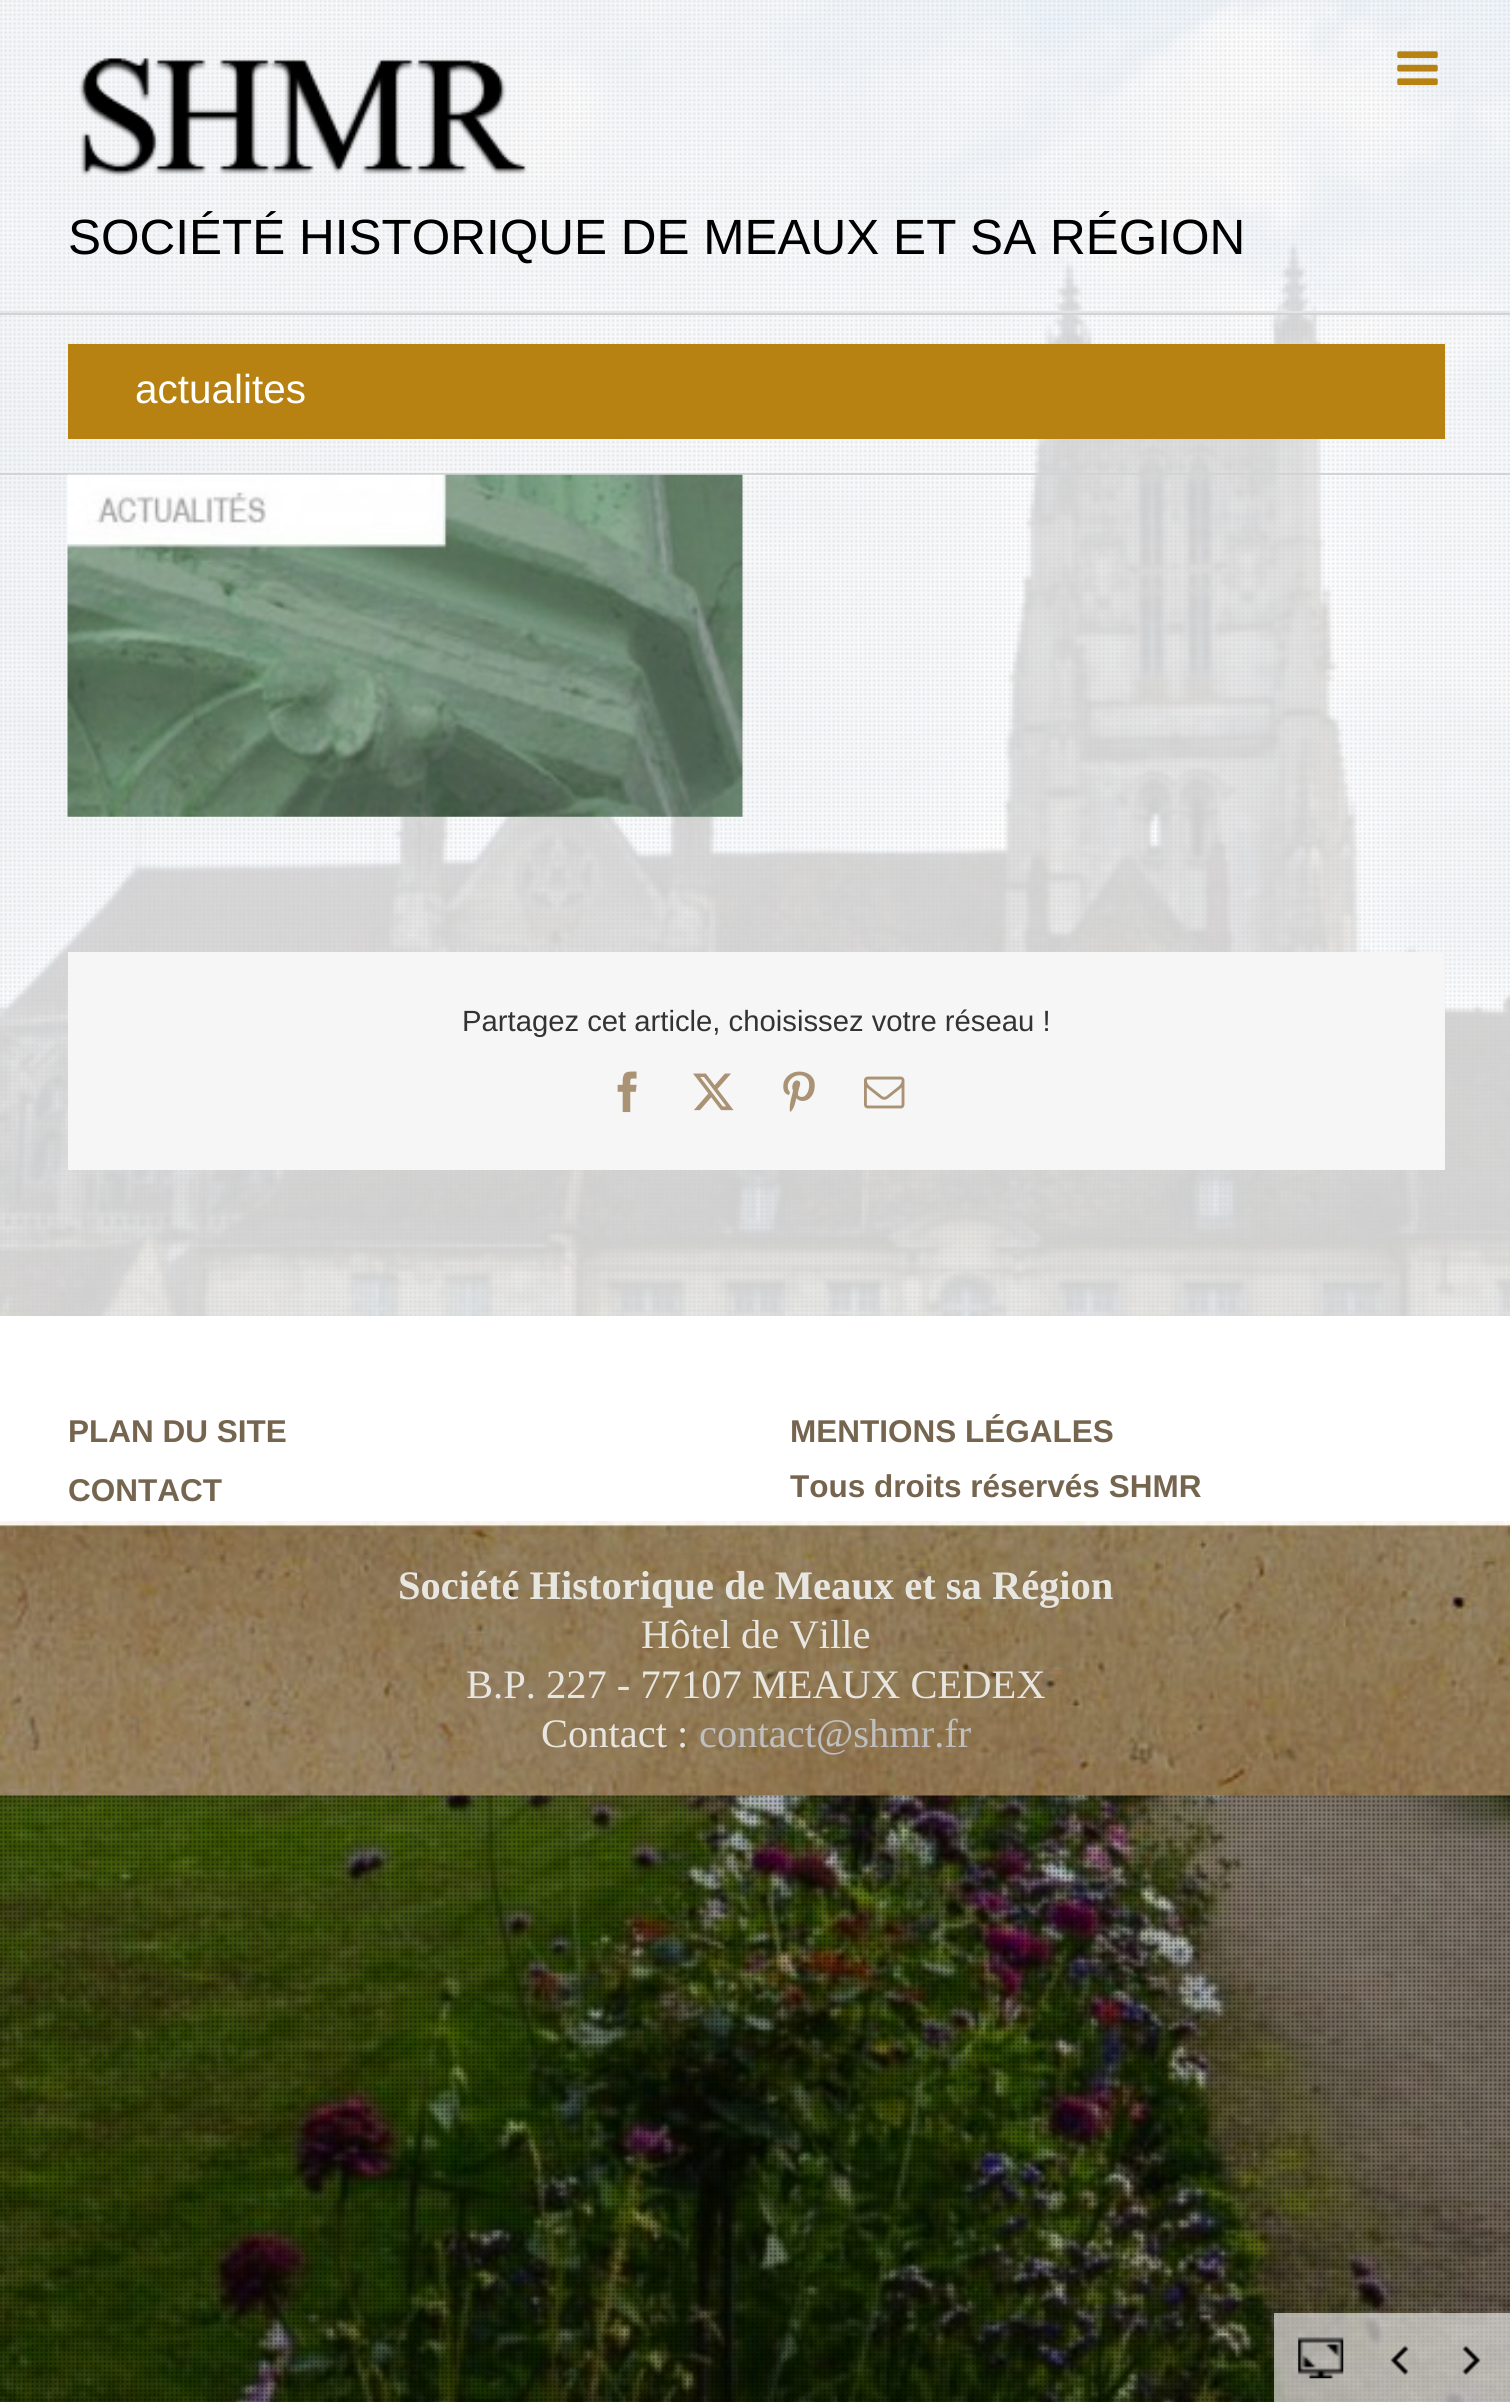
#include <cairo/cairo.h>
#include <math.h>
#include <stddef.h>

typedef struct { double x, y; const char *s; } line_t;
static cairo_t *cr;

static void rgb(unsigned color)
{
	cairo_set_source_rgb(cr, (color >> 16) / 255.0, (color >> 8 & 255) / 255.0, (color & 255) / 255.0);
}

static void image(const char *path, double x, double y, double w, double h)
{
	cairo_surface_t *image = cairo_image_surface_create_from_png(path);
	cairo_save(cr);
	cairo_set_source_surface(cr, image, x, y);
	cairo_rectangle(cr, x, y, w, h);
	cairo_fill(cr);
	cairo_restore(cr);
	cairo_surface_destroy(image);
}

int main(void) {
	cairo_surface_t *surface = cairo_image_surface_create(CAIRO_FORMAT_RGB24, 1510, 2402);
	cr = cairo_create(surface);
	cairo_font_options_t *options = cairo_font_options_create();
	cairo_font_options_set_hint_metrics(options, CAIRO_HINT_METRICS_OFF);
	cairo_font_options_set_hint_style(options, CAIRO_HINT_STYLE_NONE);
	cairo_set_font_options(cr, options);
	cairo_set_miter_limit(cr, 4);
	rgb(0xffffff);
	cairo_paint(cr);
	image("img/1.png", 0, 0, 1510, 2402);
	image("img/2.png", 0, 0, 1510, 2402);
	cairo_set_source_rgba(cr, 1, 1, 1, 0.6);
	cairo_rectangle(cr, 1274, 2313, 236, 89);
	cairo_fill(cr);
	image("img/3.png", 1298, 2337, 46, 42);
	image("img/4.png", 1390, 2345, 19, 31);
	image("img/5.png", 1462, 2345, 19, 31);
	cairo_set_source_rgba(cr, 1, 1, 1, 0.8);
	cairo_rectangle(cr, 0, 0, 1510, 311);
	cairo_fill(cr);
	rgb(0xe5e5e5);
	cairo_rectangle(cr, 0, 311, 1510, 2);
	cairo_fill(cr);
	image("img/6.png", 1397, 51, 41, 35);
	image("img/7.png", 79, 57, 448, 119);
	cairo_set_source_rgba(cr, 1, 1, 1, 0.8);
	cairo_rectangle(cr, 0, 315, 1510, 158);
	cairo_fill(cr);
	rgb(0xd2d3d4);
	cairo_rectangle(cr, 0, 313, 1510, 2);
	cairo_fill(cr);
	cairo_rectangle(cr, 0, 473, 1510, 2);
	cairo_fill(cr);
	rgb(0xb78211);
	cairo_rectangle(cr, 68, 344, 1377, 95);
	cairo_fill(cr);
	cairo_set_source_rgba(cr, 1, 1, 1, 0.8);
	cairo_rectangle(cr, 0, 475, 1510, 841);
	cairo_fill(cr);
	image("img/8.png", 67, 474, 676, 343);
	rgb(0xf6f6f6);
	cairo_rectangle(cr, 68, 952, 1377, 218);
	cairo_fill(cr);
	image("img/9.png", 617, 1071, 20, 42);
	image("img/10.png", 693, 1073, 41, 38);
	image("img/11.png", 783, 1071, 32, 41);
	image("img/12.png", 864, 1076, 41, 33);
	rgb(0xffffff);
	cairo_rectangle(cr, 0, 1316, 1510, 205);
	cairo_fill(cr);
	image("img/13.png", 0, 1521, 1510, 275);
	cairo_select_font_face(cr, "Liberation Sans", CAIRO_FONT_SLANT_NORMAL, CAIRO_FONT_WEIGHT_NORMAL);
	cairo_set_font_size(cr, 49.5);
	rgb(0x000000);
	cairo_move_to(cr, 68, 254);
	cairo_show_text(cr, "SOCIÉTÉ HISTORIQUE DE MEAUX ET SA RÉGION");
	cairo_set_font_size(cr, 40.5);
	rgb(0xffffff);
	cairo_move_to(cr, 135, 403);
	cairo_show_text(cr, "actualites");
	cairo_set_font_size(cr, 29.25);
	rgb(0x333333);
	cairo_move_to(cr, 462, 1031);
	cairo_show_text(cr, "Partagez cet article, choisissez votre réseau !");
	cairo_select_font_face(cr, "Liberation Sans", CAIRO_FONT_SLANT_NORMAL, CAIRO_FONT_WEIGHT_BOLD);
	cairo_set_font_size(cr, 31.5);
	rgb(0x75654f);
	{
		static const line_t items[] = {
			{68, 1442, "PLAN DU SITE"},
			{790, 1442, "MENTIONS LÉGALES"},
			{68, 1501, "CONTACT"},
			{790, 1497, "Tous droits réservés SHMR"},
		};
		for (size_t i = 0; i < sizeof items / sizeof *items; i++) {
			cairo_move_to(cr, items[i].x, items[i].y);
			cairo_show_text(cr, items[i].s);
		}
	}
	cairo_select_font_face(cr, "Liberation Serif", CAIRO_FONT_SLANT_NORMAL, CAIRO_FONT_WEIGHT_BOLD);
	cairo_set_font_size(cr, 40.5);
	rgb(0xe8e6e0);
	cairo_move_to(cr, 398, 1599);
	cairo_show_text(cr, "Société Historique de Meaux et sa Région");
	cairo_select_font_face(cr, "Liberation Serif", CAIRO_FONT_SLANT_NORMAL, CAIRO_FONT_WEIGHT_NORMAL);
	{
		static const line_t items[] = {
			{641, 1648, "Hôtel de Ville"},
			{466, 1698, "B.P. 227 - 77107 MEAUX CEDEX"},
			{541, 1747, "Contact :"},
		};
		for (size_t i = 0; i < sizeof items / sizeof *items; i++) {
			cairo_move_to(cr, items[i].x, items[i].y);
			cairo_show_text(cr, items[i].s);
		}
	}
	rgb(0xbfbfbf);
	cairo_move_to(cr, 699, 1747);
	cairo_show_text(cr, "contact@shmr.fr");
	cairo_surface_write_to_png(surface, "page.png");
	cairo_font_options_destroy(options);
	cairo_destroy(cr);
	cairo_surface_destroy(surface);
	return 0;
}
